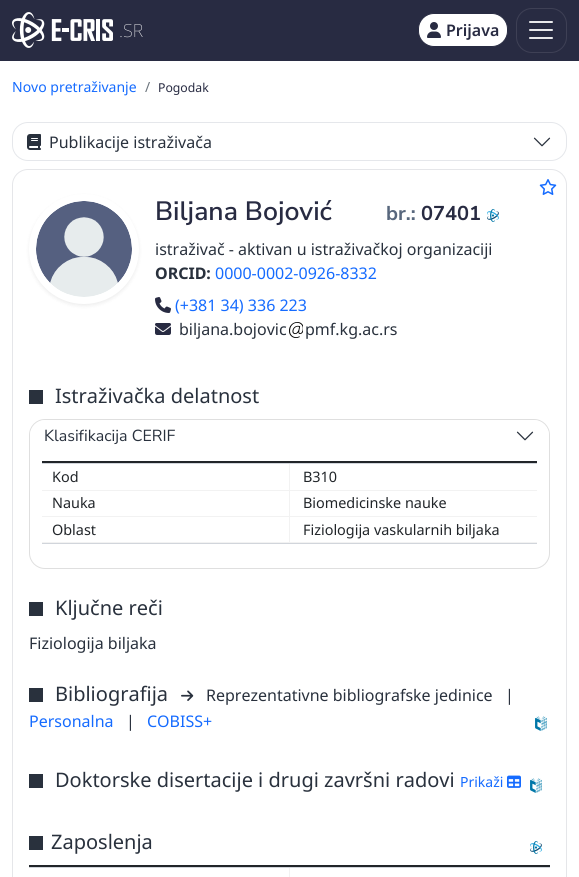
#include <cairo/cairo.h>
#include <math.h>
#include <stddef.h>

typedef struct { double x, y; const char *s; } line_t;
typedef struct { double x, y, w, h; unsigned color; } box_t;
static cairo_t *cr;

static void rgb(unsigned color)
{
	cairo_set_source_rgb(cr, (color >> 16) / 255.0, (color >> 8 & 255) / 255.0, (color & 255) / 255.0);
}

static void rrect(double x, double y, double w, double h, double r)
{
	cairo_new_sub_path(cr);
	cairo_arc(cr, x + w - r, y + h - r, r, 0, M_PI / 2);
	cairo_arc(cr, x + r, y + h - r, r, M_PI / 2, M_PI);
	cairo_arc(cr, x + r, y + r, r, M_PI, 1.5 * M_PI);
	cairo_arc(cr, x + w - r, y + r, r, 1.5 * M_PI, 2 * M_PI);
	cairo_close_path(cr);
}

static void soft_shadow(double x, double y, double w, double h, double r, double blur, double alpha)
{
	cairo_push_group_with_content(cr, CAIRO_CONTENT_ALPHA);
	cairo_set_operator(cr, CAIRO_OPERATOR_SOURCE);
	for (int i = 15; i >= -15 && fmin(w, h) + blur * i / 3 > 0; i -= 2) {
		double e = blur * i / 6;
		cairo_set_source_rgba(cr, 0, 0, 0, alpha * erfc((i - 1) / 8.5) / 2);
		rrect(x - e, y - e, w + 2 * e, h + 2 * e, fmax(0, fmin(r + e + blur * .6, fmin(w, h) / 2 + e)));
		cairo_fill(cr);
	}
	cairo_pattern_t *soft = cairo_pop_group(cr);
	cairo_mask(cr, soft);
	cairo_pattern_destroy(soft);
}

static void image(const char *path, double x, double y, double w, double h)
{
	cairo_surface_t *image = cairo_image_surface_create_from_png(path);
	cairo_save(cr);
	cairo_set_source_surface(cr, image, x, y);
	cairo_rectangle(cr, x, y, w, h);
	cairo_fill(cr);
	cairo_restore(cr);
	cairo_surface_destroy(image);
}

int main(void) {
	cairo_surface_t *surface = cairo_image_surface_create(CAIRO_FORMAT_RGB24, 579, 877);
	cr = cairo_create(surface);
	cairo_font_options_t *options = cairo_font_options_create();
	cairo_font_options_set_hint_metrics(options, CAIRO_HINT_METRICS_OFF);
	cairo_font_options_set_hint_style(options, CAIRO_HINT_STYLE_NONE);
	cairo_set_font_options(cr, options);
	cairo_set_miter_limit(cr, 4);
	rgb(0xffffff);
	cairo_paint(cr);
	rgb(0x282b42);
	cairo_rectangle(cr, 0, 0, 579, 61);
	cairo_fill(cr);
	image("img/1.png", 12, 12, 101, 36);
	rgb(0xffffff);
	rrect(418.5, 13.5, 89, 33, 15.5);
	cairo_fill_preserve(cr);
	rgb(0x282b42);
	cairo_set_line_width(cr, 1);
	cairo_stroke(cr);
	image("img/2.png", 427, 22, 14, 16);
	rrect(516.5, 8.5, 50, 44, 15.5);
	rgb(0x3e4055);
	cairo_stroke(cr);
	image("img/3.png", 529, 21, 24, 18);
	rrect(12.5, 122.5, 554, 38, 15.5);
	rgb(0xe5e7eb);
	cairo_stroke(cr);
	image("img/4.png", 27, 134, 14, 16);
	image("img/5.png", 533, 137, 18, 10);
	rrect(12.5, 169.5, 554, 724, 15.5);
	rgb(0xe5e6e9);
	cairo_stroke(cr);
	image("img/6.png", 539, 179, 18, 16);
	rgb(0x000000);
	soft_shadow(29, 196, 110, 110, 55, 2, 0.07);
	rgb(0xffffff);
	cairo_arc(cr, 84, 249, 53.5, 0, 2 * M_PI);
	cairo_fill_preserve(cr);
	cairo_set_line_width(cr, 3);
	cairo_stroke(cr);
	image("img/7.png", 36, 201, 96, 96);
	image("img/8.png", 487, 209, 12, 13);
	image("img/9.png", 155, 297, 16, 16);
	image("img/10.png", 155, 323, 16, 12);
	image("img/11.png", 289, 322, 14, 16);
	rgb(0x29313d);
	cairo_rectangle(cr, 29, 390, 14, 14);
	cairo_fill(cr);
	rrect(29.5, 419.5, 520, 149, 15.5);
	rgb(0xdfdfdf);
	cairo_set_line_width(cr, 1);
	cairo_stroke(cr);
	rgb(0xffffff);
	rrect(30, 420, 519, 33, 16);
	cairo_fill(cr);
	image("img/5.png", 516, 431, 18, 10);
	{
		static const box_t items[] = {
			{42, 461, 495, 2, 0x212529},
			{42, 543, 495, 1, 0xd1d5db},
			{42, 463, 495, 1, 0xd1d5db},
			{42, 490, 495, 1, 0xf2f2f2},
			{289, 464, 1, 26, 0xf2f2f2},
			{42, 516, 495, 1, 0xf2f2f2},
			{289, 491, 1, 25, 0xf2f2f2},
			{42, 542, 495, 1, 0xf2f2f2},
			{289, 517, 1, 25, 0xf2f2f2},
			{29, 602, 14, 14, 0x29313d},
			{29, 688, 14, 14, 0x29313d},
		};
		for (size_t i = 0; i < sizeof items / sizeof *items; i++) {
			rgb(items[i].color);
			cairo_rectangle(cr, items[i].x, items[i].y, items[i].w, items[i].h);
			cairo_fill(cr);
		}
	}
	image("img/12.png", 181, 690, 13, 11);
	image("img/13.png", 535, 716, 12, 15);
	cairo_rectangle(cr, 29, 774, 14, 14);
	cairo_fill(cr);
	image("img/14.png", 507, 775, 14, 13);
	image("img/13.png", 530, 778, 12, 15);
	cairo_rectangle(cr, 29, 836, 14, 14);
	cairo_fill(cr);
	image("img/8.png", 530, 841, 12, 13);
	{
		static const box_t items[] = {
			{29, 865, 521, 2, 0x212529},
			{29, 867, 521, 1, 0xd1d5db},
			{289, 868, 1, 9, 0xf2f2f2},
		};
		for (size_t i = 0; i < sizeof items / sizeof *items; i++) {
			rgb(items[i].color);
			cairo_rectangle(cr, items[i].x, items[i].y, items[i].w, items[i].h);
			cairo_fill(cr);
		}
	}
	cairo_select_font_face(cr, "Noto Sans Thin", CAIRO_FONT_SLANT_NORMAL, CAIRO_FONT_WEIGHT_NORMAL);
	cairo_set_font_size(cr, 18);
	rgb(0xffffff);
	cairo_move_to(cr, 119, 37);
	cairo_show_text(cr, ".SR");
	cairo_select_font_face(cr, "Noto Sans SemiBold", CAIRO_FONT_SLANT_NORMAL, CAIRO_FONT_WEIGHT_NORMAL);
	cairo_set_font_size(cr, 16);
	rgb(0x282b42);
	cairo_move_to(cr, 446, 36);
	cairo_show_text(cr, "Prijava");
	cairo_select_font_face(cr, "Noto Sans", CAIRO_FONT_SLANT_NORMAL, CAIRO_FONT_WEIGHT_NORMAL);
	cairo_set_font_size(cr, 14);
	rgb(0x156bff);
	cairo_move_to(cr, 12, 92);
	cairo_show_text(cr, "Novo pretraživanje");
	rgb(0x6c757d);
	cairo_move_to(cr, 145, 92);
	cairo_show_text(cr, "/");
	cairo_set_font_size(cr, 12.25);
	rgb(0x282b42);
	cairo_move_to(cr, 158, 92);
	cairo_show_text(cr, "Pogodak");
	cairo_set_font_size(cr, 16);
	rgb(0x29313d);
	cairo_move_to(cr, 49, 148);
	cairo_show_text(cr, "Publikacije istraživača");
	cairo_select_font_face(cr, "Nunito Sans SemiBold", CAIRO_FONT_SLANT_NORMAL, CAIRO_FONT_WEIGHT_NORMAL);
	cairo_set_font_size(cr, 26.5);
	rgb(0x282b42);
	cairo_move_to(cr, 155, 220);
	cairo_show_text(cr, "Biljana Bojović");
	cairo_select_font_face(cr, "Nunito Sans", CAIRO_FONT_SLANT_NORMAL, CAIRO_FONT_WEIGHT_BOLD);
	cairo_set_font_size(cr, 20);
	rgb(0x58677d);
	cairo_move_to(cr, 386, 220);
	cairo_show_text(cr, "br.:");
	rgb(0x282b42);
	cairo_move_to(cr, 421, 220);
	cairo_show_text(cr, "07401");
	cairo_select_font_face(cr, "Noto Sans", CAIRO_FONT_SLANT_NORMAL, CAIRO_FONT_WEIGHT_NORMAL);
	cairo_set_font_size(cr, 16);
	rgb(0x29313d);
	cairo_move_to(cr, 155, 255);
	cairo_show_text(cr, "istraživač - aktivan u istraživačkoj organizaciji");
	cairo_select_font_face(cr, "Noto Sans", CAIRO_FONT_SLANT_NORMAL, CAIRO_FONT_WEIGHT_BOLD);
	cairo_move_to(cr, 155, 279);
	cairo_show_text(cr, "ORCID:");
	cairo_select_font_face(cr, "Noto Sans", CAIRO_FONT_SLANT_NORMAL, CAIRO_FONT_WEIGHT_NORMAL);
	rgb(0x156bff);
	cairo_move_to(cr, 215, 279);
	cairo_show_text(cr, "0000-0002-0926-8332");
	cairo_move_to(cr, 175, 311);
	cairo_show_text(cr, "(+381 34) 336 223");
	rgb(0x29313d);
	cairo_move_to(cr, 179, 335);
	cairo_show_text(cr, "biljana.bojovic");
	cairo_move_to(cr, 305, 335);
	cairo_show_text(cr, "pmf.kg.ac.rs");
	cairo_set_font_size(cr, 20);
	cairo_move_to(cr, 55, 403);
	cairo_show_text(cr, "Istraživačka delatnost");
	cairo_select_font_face(cr, "Nunito Sans", CAIRO_FONT_SLANT_NORMAL, CAIRO_FONT_WEIGHT_NORMAL);
	cairo_set_font_size(cr, 16);
	cairo_move_to(cr, 44, 441);
	cairo_show_text(cr, "Klasifikacija CERIF");
	cairo_select_font_face(cr, "Noto Sans", CAIRO_FONT_SLANT_NORMAL, CAIRO_FONT_WEIGHT_NORMAL);
	cairo_set_font_size(cr, 14.4);
	rgb(0x212529);
	{
		static const line_t items[] = {
			{52, 482, "Kod"},
			{303, 482, "B310"},
			{52, 508, "Nauka"},
			{303, 508, "Biomedicinske nauke"},
			{52, 535, "Oblast"},
			{303, 535, "Fiziologija vaskularnih biljaka"},
		};
		for (size_t i = 0; i < sizeof items / sizeof *items; i++) {
			cairo_move_to(cr, items[i].x, items[i].y);
			cairo_show_text(cr, items[i].s);
		}
	}
	cairo_set_font_size(cr, 20);
	rgb(0x29313d);
	cairo_move_to(cr, 55, 615);
	cairo_show_text(cr, "Ključne reči");
	cairo_set_font_size(cr, 16);
	cairo_move_to(cr, 29, 649);
	cairo_show_text(cr, "Fiziologija biljaka");
	cairo_set_font_size(cr, 20);
	cairo_move_to(cr, 55, 701);
	cairo_show_text(cr, "Bibliografija");
	cairo_set_font_size(cr, 16);
	cairo_move_to(cr, 206, 701);
	cairo_show_text(cr, "Reprezentativne bibliografske jedinice");
	cairo_move_to(cr, 505, 701);
	cairo_show_text(cr, "|");
	rgb(0x156bff);
	cairo_move_to(cr, 29, 727);
	cairo_show_text(cr, "Personalna");
	rgb(0x29313d);
	cairo_move_to(cr, 126, 727);
	cairo_show_text(cr, "|");
	rgb(0x156bff);
	cairo_move_to(cr, 147, 727);
	cairo_show_text(cr, "COBISS+");
	cairo_set_font_size(cr, 20);
	rgb(0x29313d);
	cairo_move_to(cr, 55, 787);
	cairo_show_text(cr, "Doktorske disertacije i drugi završni radovi");
	cairo_set_font_size(cr, 14);
	rgb(0x156bff);
	cairo_move_to(cr, 460, 787);
	cairo_show_text(cr, "Prikaži");
	cairo_set_font_size(cr, 20);
	rgb(0x29313d);
	cairo_move_to(cr, 51, 849);
	cairo_show_text(cr, "Zaposlenja");
	cairo_surface_write_to_png(surface, "page.png");
	cairo_font_options_destroy(options);
	cairo_destroy(cr);
	cairo_surface_destroy(surface);
	return 0;
}
